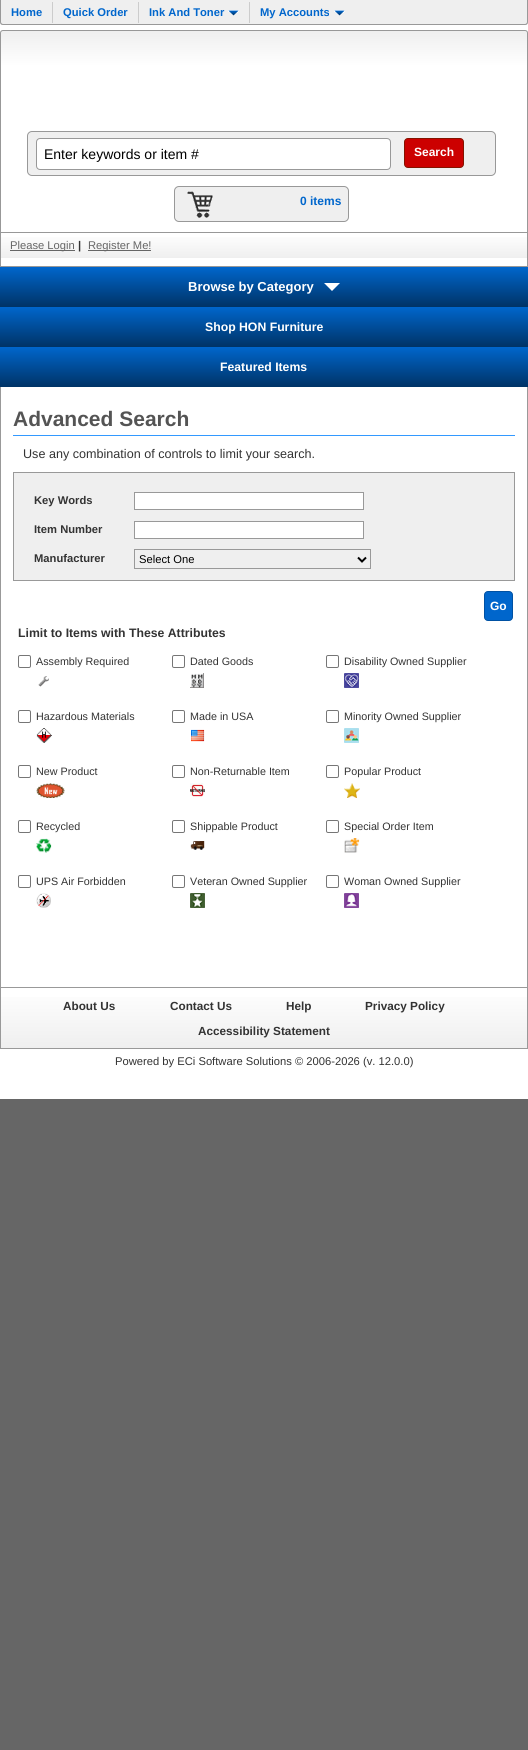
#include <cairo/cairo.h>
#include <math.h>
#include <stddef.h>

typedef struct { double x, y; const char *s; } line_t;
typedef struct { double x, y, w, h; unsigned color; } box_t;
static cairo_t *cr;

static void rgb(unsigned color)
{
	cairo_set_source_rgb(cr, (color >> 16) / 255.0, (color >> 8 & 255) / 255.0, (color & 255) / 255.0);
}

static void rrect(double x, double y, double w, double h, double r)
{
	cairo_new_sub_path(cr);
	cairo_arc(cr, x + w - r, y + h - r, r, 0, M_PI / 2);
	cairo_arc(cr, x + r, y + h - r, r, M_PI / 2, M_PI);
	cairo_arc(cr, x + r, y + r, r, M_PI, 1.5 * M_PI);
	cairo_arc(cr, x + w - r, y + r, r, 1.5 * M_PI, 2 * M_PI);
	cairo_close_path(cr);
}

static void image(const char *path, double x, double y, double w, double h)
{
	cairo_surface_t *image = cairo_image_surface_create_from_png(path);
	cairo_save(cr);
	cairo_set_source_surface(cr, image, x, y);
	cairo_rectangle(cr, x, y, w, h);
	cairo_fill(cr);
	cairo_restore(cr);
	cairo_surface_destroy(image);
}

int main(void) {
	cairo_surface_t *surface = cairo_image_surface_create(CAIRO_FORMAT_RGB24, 528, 1750);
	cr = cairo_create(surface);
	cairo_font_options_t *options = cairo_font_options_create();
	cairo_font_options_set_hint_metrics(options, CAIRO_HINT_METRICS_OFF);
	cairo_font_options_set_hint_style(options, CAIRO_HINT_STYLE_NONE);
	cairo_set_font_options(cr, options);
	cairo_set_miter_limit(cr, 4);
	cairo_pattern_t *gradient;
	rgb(0x666666);
	cairo_paint(cr);
	rgb(0xffffff);
	cairo_rectangle(cr, 0, 22, 528, 1077);
	cairo_fill(cr);
	rgb(0xefefef);
	cairo_new_path(cr);
	cairo_move_to(cr, 0, 0);
	cairo_line_to(cr, 528, 0);
	cairo_line_to(cr, 528, 22);
	cairo_curve_to(cr, 528, 23.5, 526.5, 25, 525, 25);
	cairo_line_to(cr, 3, 25);
	cairo_curve_to(cr, 1.5, 25, 0, 23.5, 0, 22);
	cairo_close_path(cr);
	cairo_fill(cr);
	rgb(0x999999);
	cairo_set_fill_rule(cr, CAIRO_FILL_RULE_EVEN_ODD);
	cairo_new_path(cr);
	cairo_move_to(cr, 0, 0);
	cairo_line_to(cr, 528, 0);
	cairo_line_to(cr, 528, 22);
	cairo_curve_to(cr, 528, 24, 527, 25, 525, 25);
	cairo_line_to(cr, 3, 25);
	cairo_curve_to(cr, 1, 25, 0, 24, 0, 22);
	cairo_close_path(cr);
	cairo_move_to(cr, 1, 0);
	cairo_line_to(cr, 527, 0);
	cairo_line_to(cr, 527, 22);
	cairo_curve_to(cr, 527, 23, 526, 24, 525, 24);
	cairo_line_to(cr, 3, 24);
	cairo_curve_to(cr, 2, 24, 1, 23, 1, 22);
	cairo_close_path(cr);
	cairo_fill(cr);
	{
		static const box_t items[] = {
			{52, 2, 1, 21, 0xcccccc},
			{138, 2, 1, 21, 0xcccccc},
			{249, 2, 1, 21, 0xcccccc},
		};
		for (size_t i = 0; i < sizeof items / sizeof *items; i++) {
			rgb(items[i].color);
			cairo_rectangle(cr, items[i].x, items[i].y, items[i].w, items[i].h);
			cairo_fill(cr);
		}
	}
	image("img/1.png", 228, 10, 11, 6);
	image("img/1.png", 334, 10, 11, 6);
	cairo_save(cr);
	cairo_set_fill_rule(cr, CAIRO_FILL_RULE_WINDING);
	cairo_new_path(cr);
	cairo_move_to(cr, 3, 30);
	cairo_line_to(cr, 525, 30);
	cairo_curve_to(cr, 526.5, 30, 528, 31.5, 528, 33);
	cairo_line_to(cr, 528, 267);
	cairo_line_to(cr, 0, 267);
	cairo_line_to(cr, 0, 33);
	cairo_curve_to(cr, 0, 31.5, 1.5, 30, 3, 30);
	cairo_close_path(cr);
	cairo_clip(cr);
	gradient = cairo_pattern_create_linear(1, 31, 1, 266);
	cairo_pattern_add_color_stop_rgba(gradient, 0, 0.937, 0.937, 0.937, 1);
	cairo_pattern_add_color_stop_rgba(gradient, 0.15, 1, 1, 1, 1);
	cairo_set_source(cr, gradient);
	cairo_pattern_destroy(gradient);
	cairo_rectangle(cr, 0, 31, 528, 235);
	cairo_fill(cr);
	cairo_restore(cr);
	cairo_new_path(cr);
	cairo_move_to(cr, 3, 30.5);
	cairo_line_to(cr, 525, 30.5);
	cairo_curve_to(cr, 526.5, 30.5, 527.5, 31.5, 527.5, 33);
	cairo_line_to(cr, 527.5, 266.5);
	cairo_line_to(cr, 0.5, 266.5);
	cairo_line_to(cr, 0.5, 33);
	cairo_curve_to(cr, 0.5, 31.5, 1.5, 30.5, 3, 30.5);
	cairo_close_path(cr);
	rgb(0x989898);
	cairo_set_line_width(cr, 1);
	cairo_stroke(cr);
	rgb(0xefefef);
	rrect(27.5, 131.5, 468, 44, 4.5);
	cairo_fill_preserve(cr);
	rgb(0x989898);
	cairo_stroke(cr);
	rgb(0xffffff);
	rrect(36.5, 138.5, 354, 31, 3.5);
	cairo_fill_preserve(cr);
	rgb(0x989898);
	cairo_stroke(cr);
	rgb(0xcc0000);
	rrect(404.5, 138.5, 59, 29, 3.5);
	cairo_fill_preserve(cr);
	rgb(0x841300);
	cairo_stroke(cr);
	rgb(0xefefef);
	rrect(174.5, 186.5, 174, 35, 4.5);
	cairo_fill_preserve(cr);
	rgb(0x989898);
	cairo_stroke(cr);
	image("img/2.png", 187, 191, 26, 27);
	gradient = cairo_pattern_create_linear(1, 233, 1, 258);
	cairo_pattern_add_color_stop_rgba(gradient, 0, 1, 1, 1, 1);
	cairo_pattern_add_color_stop_rgba(gradient, 1, 0.937, 0.937, 0.937, 1);
	cairo_set_source(cr, gradient);
	cairo_pattern_destroy(gradient);
	cairo_rectangle(cr, 1, 237, 526, 21);
	cairo_fill(cr);
	{
		static const box_t items[] = {
			{1, 232, 526, 1, 0x989898},
			{10, 250, 65, 1, 0x666666},
			{88, 250, 63, 1, 0x666666},
		};
		for (size_t i = 0; i < sizeof items / sizeof *items; i++) {
			rgb(items[i].color);
			cairo_rectangle(cr, items[i].x, items[i].y, items[i].w, items[i].h);
			cairo_fill(cr);
		}
	}
	gradient = cairo_pattern_create_linear(264, 267, 264, 307);
	cairo_pattern_add_color_stop_rgba(gradient, 0, 0, 0.4, 0.8, 1);
	cairo_pattern_add_color_stop_rgba(gradient, 1, 0, 0.2, 0.4, 1);
	cairo_set_source(cr, gradient);
	cairo_pattern_destroy(gradient);
	cairo_rectangle(cr, 0, 267, 528, 40);
	cairo_fill(cr);
	rgb(0xffffff);
	cairo_set_fill_rule(cr, CAIRO_FILL_RULE_WINDING);
	cairo_new_path(cr);
	cairo_move_to(cr, 324, 283);
	cairo_line_to(cr, 340, 283);
	cairo_line_to(cr, 332, 291);
	cairo_close_path(cr);
	cairo_fill(cr);
	gradient = cairo_pattern_create_linear(264, 307, 264, 347);
	cairo_pattern_add_color_stop_rgba(gradient, 0, 0, 0.4, 0.8, 1);
	cairo_pattern_add_color_stop_rgba(gradient, 1, 0, 0.2, 0.4, 1);
	cairo_set_source(cr, gradient);
	cairo_pattern_destroy(gradient);
	cairo_rectangle(cr, 0, 307, 528, 40);
	cairo_fill(cr);
	gradient = cairo_pattern_create_linear(264, 347, 264, 387);
	cairo_pattern_add_color_stop_rgba(gradient, 0, 0, 0.4, 0.8, 1);
	cairo_pattern_add_color_stop_rgba(gradient, 1, 0, 0.2, 0.4, 1);
	cairo_set_source(cr, gradient);
	cairo_pattern_destroy(gradient);
	cairo_rectangle(cr, 0, 347, 528, 40);
	cairo_fill(cr);
	{
		static const box_t items[] = {
			{527, 387, 1, 600, 0x999999},
			{0, 387, 1, 600, 0x999999},
			{13, 435, 502, 1, 0x3399ff},
		};
		for (size_t i = 0; i < sizeof items / sizeof *items; i++) {
			rgb(items[i].color);
			cairo_rectangle(cr, items[i].x, items[i].y, items[i].w, items[i].h);
			cairo_fill(cr);
		}
	}
	rgb(0xefefef);
	cairo_rectangle(cr, 13.5, 472.5, 501, 108);
	cairo_fill_preserve(cr);
	rgb(0x999999);
	cairo_stroke(cr);
	rgb(0xffffff);
	cairo_rectangle(cr, 134.5, 492.5, 229, 17);
	cairo_fill_preserve(cr);
	rgb(0x999999);
	cairo_stroke(cr);
	rgb(0xffffff);
	cairo_rectangle(cr, 134.5, 521.5, 229, 17);
	cairo_fill_preserve(cr);
	rgb(0x999999);
	cairo_stroke(cr);
	cairo_rectangle(cr, 134.5, 549.5, 236, 19);
	cairo_stroke(cr);
	cairo_new_path(cr);
	cairo_move_to(cr, 358, 557.5);
	cairo_line_to(cr, 362, 561.5);
	cairo_line_to(cr, 366, 557.5);
	rgb(0x000000);
	cairo_set_line_width(cr, 2);
	cairo_stroke(cr);
	rgb(0x0066cc);
	rrect(484.5, 591.5, 28, 29, 3.5);
	cairo_fill_preserve(cr);
	rgb(0x0051a3);
	cairo_set_line_width(cr, 1);
	cairo_stroke(cr);
	rrect(18.5, 655.5, 12, 12, 1.5);
	rgb(0x767676);
	cairo_stroke(cr);
	image("img/3.png", 38, 676, 11, 11);
	rrect(172.5, 655.5, 12, 12, 1.5);
	cairo_stroke(cr);
	image("img/4.png", 190, 673, 14, 15);
	rrect(326.5, 655.5, 12, 12, 1.5);
	cairo_stroke(cr);
	image("img/5.png", 344, 673, 15, 15);
	rrect(18.5, 710.5, 12, 12, 1.5);
	cairo_stroke(cr);
	image("img/6.png", 36, 728, 16, 15);
	rrect(172.5, 710.5, 12, 12, 1.5);
	cairo_stroke(cr);
	image("img/7.png", 191, 729, 14, 13);
	rrect(326.5, 710.5, 12, 12, 1.5);
	cairo_stroke(cr);
	image("img/8.png", 344, 728, 15, 15);
	rrect(18.5, 765.5, 12, 12, 1.5);
	cairo_stroke(cr);
	image("img/9.png", 36, 783, 29, 15);
	rrect(172.5, 765.5, 12, 12, 1.5);
	cairo_stroke(cr);
	image("img/10.png", 190, 783, 15, 14);
	rrect(326.5, 765.5, 12, 12, 1.5);
	cairo_stroke(cr);
	image("img/11.png", 344, 783, 16, 15);
	rrect(18.5, 820.5, 12, 12, 1.5);
	cairo_stroke(cr);
	image("img/12.png", 36, 838, 16, 15);
	rrect(172.5, 820.5, 12, 12, 1.5);
	cairo_stroke(cr);
	image("img/13.png", 190, 841, 15, 9);
	rrect(326.5, 820.5, 12, 12, 1.5);
	cairo_stroke(cr);
	image("img/14.png", 344, 838, 16, 15);
	rrect(18.5, 875.5, 12, 12, 1.5);
	cairo_stroke(cr);
	image("img/15.png", 36, 893, 15, 15);
	rrect(172.5, 875.5, 12, 12, 1.5);
	cairo_stroke(cr);
	image("img/16.png", 190, 893, 15, 15);
	rrect(326.5, 875.5, 12, 12, 1.5);
	cairo_stroke(cr);
	image("img/17.png", 344, 893, 15, 15);
	cairo_rectangle(cr, 0.5, 987.5, 527, 61);
	rgb(0x999999);
	cairo_stroke(cr);
	gradient = cairo_pattern_create_linear(1, 988, 1, 1048);
	cairo_pattern_add_color_stop_rgba(gradient, 0, 1, 1, 1, 1);
	cairo_pattern_add_color_stop_rgba(gradient, 1, 0.937, 0.937, 0.937, 1);
	cairo_set_source(cr, gradient);
	cairo_pattern_destroy(gradient);
	cairo_rectangle(cr, 1, 997, 526, 51);
	cairo_fill(cr);
	cairo_select_font_face(cr, "Liberation Sans", CAIRO_FONT_SLANT_NORMAL, CAIRO_FONT_WEIGHT_BOLD);
	cairo_set_font_size(cr, 11.2);
	rgb(0x0066cc);
	{
		static const line_t items[] = {
			{11, 16, "Home"},
			{63, 16, "Quick Order"},
			{149, 16, "Ink And Toner"},
			{260, 16, "My Accounts"},
		};
		for (size_t i = 0; i < sizeof items / sizeof *items; i++) {
			cairo_move_to(cr, items[i].x, items[i].y);
			cairo_show_text(cr, items[i].s);
		}
	}
	cairo_select_font_face(cr, "Liberation Sans", CAIRO_FONT_SLANT_NORMAL, CAIRO_FONT_WEIGHT_NORMAL);
	cairo_set_font_size(cr, 14);
	rgb(0x000000);
	cairo_move_to(cr, 44, 159);
	cairo_show_text(cr, "Enter keywords or item #");
	cairo_select_font_face(cr, "Liberation Sans", CAIRO_FONT_SLANT_NORMAL, CAIRO_FONT_WEIGHT_BOLD);
	cairo_set_font_size(cr, 12);
	rgb(0xffffff);
	cairo_move_to(cr, 414, 156);
	cairo_show_text(cr, "Search");
	rgb(0x0066cc);
	cairo_move_to(cr, 300, 205);
	cairo_show_text(cr, "0 items");
	cairo_select_font_face(cr, "Liberation Sans", CAIRO_FONT_SLANT_NORMAL, CAIRO_FONT_WEIGHT_NORMAL);
	cairo_set_font_size(cr, 11.2);
	rgb(0x666666);
	cairo_move_to(cr, 10, 249);
	cairo_show_text(cr, "Please Login");
	cairo_select_font_face(cr, "Liberation Sans", CAIRO_FONT_SLANT_NORMAL, CAIRO_FONT_WEIGHT_BOLD);
	rgb(0x333333);
	cairo_move_to(cr, 78, 249);
	cairo_show_text(cr, "|");
	cairo_select_font_face(cr, "Liberation Sans", CAIRO_FONT_SLANT_NORMAL, CAIRO_FONT_WEIGHT_NORMAL);
	rgb(0x666666);
	cairo_move_to(cr, 88, 249);
	cairo_show_text(cr, "Register Me!");
	cairo_select_font_face(cr, "Liberation Sans", CAIRO_FONT_SLANT_NORMAL, CAIRO_FONT_WEIGHT_BOLD);
	cairo_set_font_size(cr, 13);
	rgb(0xffffff);
	cairo_move_to(cr, 188, 291);
	cairo_show_text(cr, "Browse by Category");
	cairo_set_font_size(cr, 12.25);
	cairo_move_to(cr, 205, 331);
	cairo_show_text(cr, "Shop HON Furniture");
	cairo_move_to(cr, 220, 371);
	cairo_show_text(cr, "Featured Items");
	cairo_set_font_size(cr, 21);
	rgb(0x545454);
	cairo_move_to(cr, 13, 426);
	cairo_show_text(cr, "Advanced Search");
	cairo_select_font_face(cr, "Liberation Sans", CAIRO_FONT_SLANT_NORMAL, CAIRO_FONT_WEIGHT_NORMAL);
	cairo_set_font_size(cr, 12.6);
	rgb(0x333333);
	cairo_move_to(cr, 23, 458);
	cairo_show_text(cr, "Use any combination of controls to limit your search.");
	cairo_select_font_face(cr, "Liberation Sans", CAIRO_FONT_SLANT_NORMAL, CAIRO_FONT_WEIGHT_BOLD);
	cairo_set_font_size(cr, 11.2);
	{
		static const line_t items[] = {
			{34, 504, "Key Words"},
			{34, 533, "Item Number"},
			{34, 562, "Manufacturer"},
		};
		for (size_t i = 0; i < sizeof items / sizeof *items; i++) {
			cairo_move_to(cr, items[i].x, items[i].y);
			cairo_show_text(cr, items[i].s);
		}
	}
	cairo_select_font_face(cr, "Liberation Sans", CAIRO_FONT_SLANT_NORMAL, CAIRO_FONT_WEIGHT_NORMAL);
	rgb(0x000000);
	cairo_move_to(cr, 139, 563);
	cairo_show_text(cr, "Select One");
	cairo_select_font_face(cr, "Liberation Sans", CAIRO_FONT_SLANT_NORMAL, CAIRO_FONT_WEIGHT_BOLD);
	cairo_set_font_size(cr, 12);
	rgb(0xffffff);
	cairo_move_to(cr, 490, 610);
	cairo_show_text(cr, "Go");
	cairo_set_font_size(cr, 12.25);
	rgb(0x333333);
	cairo_move_to(cr, 18, 637);
	cairo_show_text(cr, "Limit to Items with These Attributes");
	cairo_select_font_face(cr, "Liberation Sans", CAIRO_FONT_SLANT_NORMAL, CAIRO_FONT_WEIGHT_NORMAL);
	cairo_set_font_size(cr, 10.75);
	{
		static const line_t items[] = {
			{36, 665, "Assembly Required"},
			{190, 665, "Dated Goods"},
			{344, 665, "Disability Owned Supplier"},
			{36, 720, "Hazardous Materials"},
			{190, 720, "Made in USA"},
			{344, 720, "Minority Owned Supplier"},
			{36, 775, "New Product"},
			{190, 775, "Non-Returnable Item"},
			{344, 775, "Popular Product"},
			{36, 830, "Recycled"},
			{190, 830, "Shippable Product"},
			{344, 830, "Special Order Item"},
			{36, 885, "UPS Air Forbidden"},
			{190, 885, "Veteran Owned Supplier"},
			{344, 885, "Woman Owned Supplier"},
		};
		for (size_t i = 0; i < sizeof items / sizeof *items; i++) {
			cairo_move_to(cr, items[i].x, items[i].y);
			cairo_show_text(cr, items[i].s);
		}
	}
	cairo_select_font_face(cr, "Liberation Sans", CAIRO_FONT_SLANT_NORMAL, CAIRO_FONT_WEIGHT_BOLD);
	cairo_set_font_size(cr, 11.75);
	{
		static const line_t items[] = {
			{63, 1010, "About Us"},
			{170, 1010, "Contact Us"},
			{286, 1010, "Help"},
			{365, 1010, "Privacy Policy"},
			{198, 1035, "Accessibility Statement"},
		};
		for (size_t i = 0; i < sizeof items / sizeof *items; i++) {
			cairo_move_to(cr, items[i].x, items[i].y);
			cairo_show_text(cr, items[i].s);
		}
	}
	cairo_select_font_face(cr, "Liberation Sans", CAIRO_FONT_SLANT_NORMAL, CAIRO_FONT_WEIGHT_NORMAL);
	cairo_set_font_size(cr, 11.2);
	cairo_move_to(cr, 115, 1065);
	cairo_show_text(cr, "Powered by ECi Software Solutions © 2006-2026 (v. 12.0.0)");
	cairo_surface_write_to_png(surface, "page.png");
	cairo_font_options_destroy(options);
	cairo_destroy(cr);
	cairo_surface_destroy(surface);
	return 0;
}
